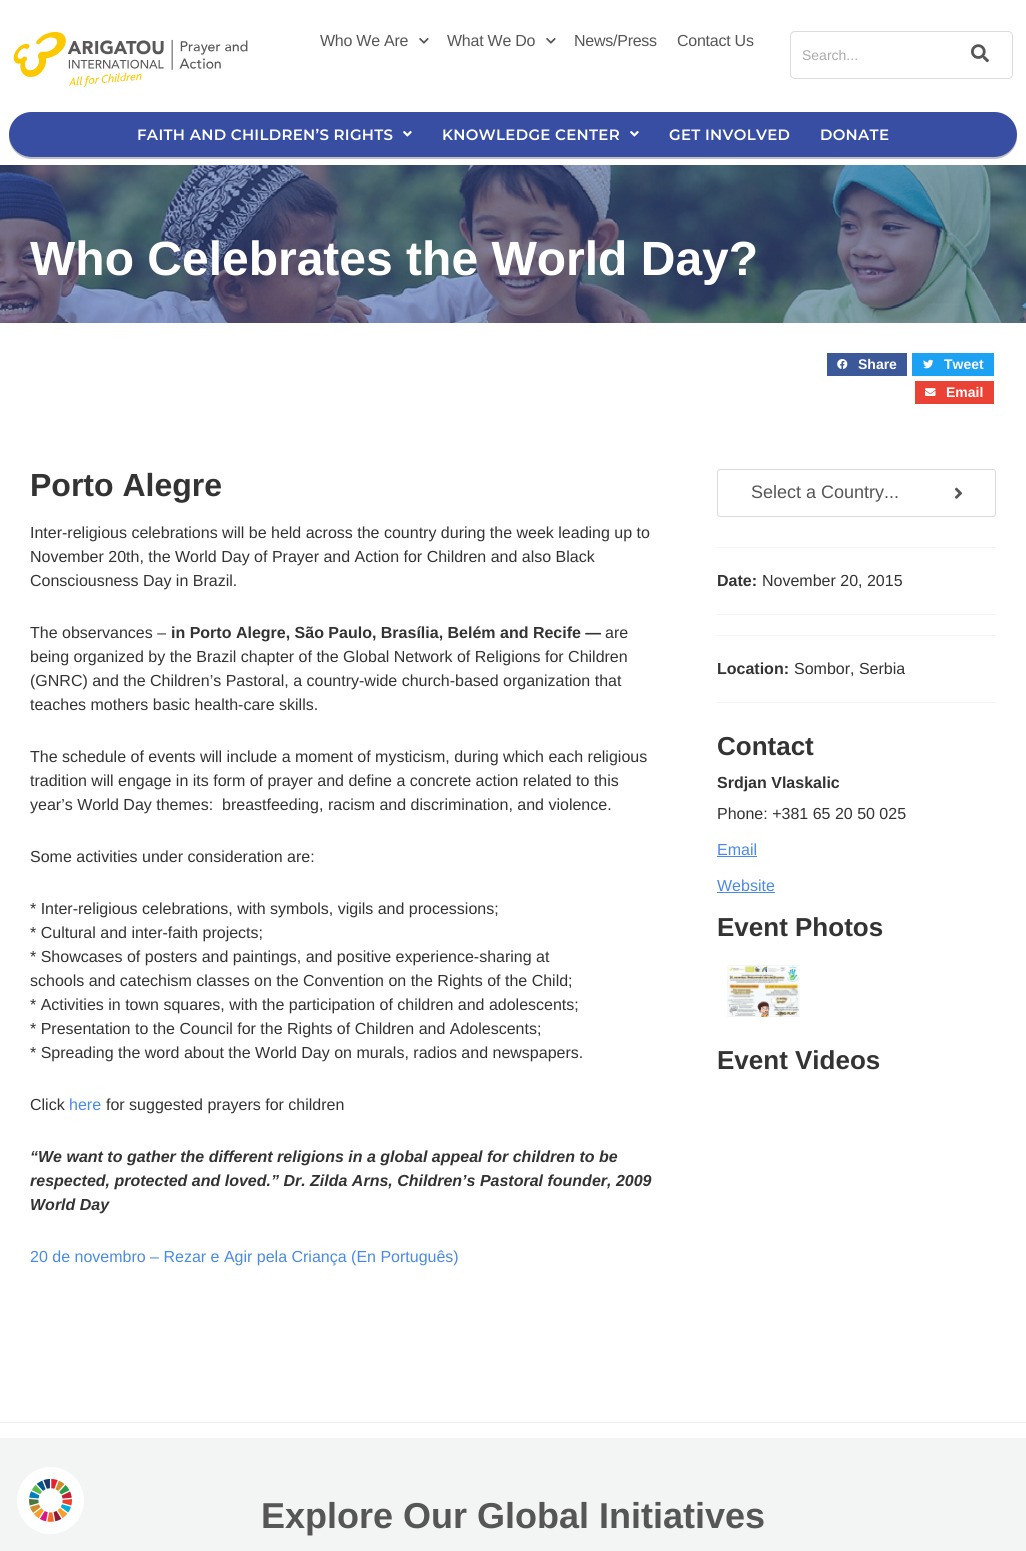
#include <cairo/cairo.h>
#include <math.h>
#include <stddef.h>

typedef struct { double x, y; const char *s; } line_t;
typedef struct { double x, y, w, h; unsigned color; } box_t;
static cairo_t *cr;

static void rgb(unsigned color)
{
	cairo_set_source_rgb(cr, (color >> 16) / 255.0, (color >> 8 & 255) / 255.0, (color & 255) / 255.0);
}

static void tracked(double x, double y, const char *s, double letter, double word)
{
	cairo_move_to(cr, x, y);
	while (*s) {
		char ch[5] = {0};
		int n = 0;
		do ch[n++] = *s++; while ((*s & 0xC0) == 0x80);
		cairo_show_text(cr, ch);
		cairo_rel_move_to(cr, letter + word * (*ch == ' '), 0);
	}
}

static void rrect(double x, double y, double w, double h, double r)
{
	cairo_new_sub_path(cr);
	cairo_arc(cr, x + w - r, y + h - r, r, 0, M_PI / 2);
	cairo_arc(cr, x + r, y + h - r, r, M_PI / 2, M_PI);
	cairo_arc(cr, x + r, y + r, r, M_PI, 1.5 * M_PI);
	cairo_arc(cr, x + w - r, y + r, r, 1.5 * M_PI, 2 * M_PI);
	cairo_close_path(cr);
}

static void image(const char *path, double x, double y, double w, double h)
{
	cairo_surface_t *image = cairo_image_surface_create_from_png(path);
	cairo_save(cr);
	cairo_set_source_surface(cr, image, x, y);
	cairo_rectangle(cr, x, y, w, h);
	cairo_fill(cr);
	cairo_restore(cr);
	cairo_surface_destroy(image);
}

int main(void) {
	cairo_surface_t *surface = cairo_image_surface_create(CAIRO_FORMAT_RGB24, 1026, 1551);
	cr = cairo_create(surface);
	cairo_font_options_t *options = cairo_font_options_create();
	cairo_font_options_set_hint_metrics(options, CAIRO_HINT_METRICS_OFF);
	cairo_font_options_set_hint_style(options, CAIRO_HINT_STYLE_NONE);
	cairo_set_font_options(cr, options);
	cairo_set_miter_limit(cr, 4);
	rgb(0xffffff);
	cairo_paint(cr);
	image("img/1.png", 13, 32, 235, 56);
	image("img/2.png", 419, 38, 10, 6);
	image("img/2.png", 546, 38, 10, 6);
	rrect(790.5, 31.5, 222, 47, 4.5);
	rgb(0xdbdbdb);
	cairo_set_line_width(cr, 1);
	cairo_stroke(cr);
	rgb(0xffffff);
	cairo_new_path(cr);
	cairo_move_to(cr, 941, 32);
	cairo_line_to(cr, 1008, 32);
	cairo_curve_to(cr, 1010, 32, 1012, 34, 1012, 36);
	cairo_line_to(cr, 1012, 74);
	cairo_curve_to(cr, 1012, 76, 1010, 78, 1008, 78);
	cairo_line_to(cr, 941, 78);
	cairo_close_path(cr);
	cairo_fill(cr);
	image("img/3.png", 971, 44, 18, 19);
	rgb(0xbfbfbf);
	cairo_new_path(cr);
	cairo_move_to(cr, 9, 135);
	cairo_curve_to(cr, 8, 148, 19, 159, 32, 159);
	cairo_line_to(cr, 994, 159);
	cairo_curve_to(cr, 1007, 159, 1018, 148, 1017, 135);
	cairo_curve_to(cr, 1016, 147, 1007, 157, 994, 157);
	cairo_line_to(cr, 32, 157);
	cairo_curve_to(cr, 19, 157, 10, 147, 9, 135);
	cairo_close_path(cr);
	cairo_fill(cr);
	rgb(0x374ea2);
	rrect(9, 112, 1008, 45, 22.5);
	cairo_fill(cr);
	image("img/4.png", 403, 131, 9, 6);
	image("img/4.png", 630, 131, 9, 6);
	image("img/5.png", 0, 165, 1026, 158);
	rgb(0x3b5998);
	cairo_rectangle(cr, 827, 353, 80, 23);
	cairo_fill(cr);
	image("img/6.png", 837, 359, 11, 10);
	rgb(0x1da1f2);
	cairo_rectangle(cr, 912, 353, 82, 23);
	cairo_fill(cr);
	image("img/7.png", 923, 359, 11, 10);
	rgb(0xea4335);
	cairo_rectangle(cr, 915, 381, 79, 23);
	cairo_fill(cr);
	image("img/8.png", 925, 388, 11, 8);
	rrect(717.5, 469.5, 278, 47, 2.5);
	rgb(0xdbdbdb);
	cairo_stroke(cr);
	image("img/9.png", 954, 487, 9, 12);
	{
		static const box_t items[] = {
			{717, 547, 279, 1, 0xf3f3f3},
			{717, 614, 279, 1, 0xf3f3f3},
			{717, 635, 279, 1, 0xf3f3f3},
			{717, 702, 279, 1, 0xf3f3f3},
			{717, 856, 40, 1, 0x498be3},
			{717, 892, 58, 1, 0x498be3},
		};
		for (size_t i = 0; i < sizeof items / sizeof *items; i++) {
			rgb(items[i].color);
			cairo_rectangle(cr, items[i].x, items[i].y, items[i].w, items[i].h);
			cairo_fill(cr);
		}
	}
	image("img/10.png", 727, 965, 73, 52);
	rgb(0xefefef);
	cairo_rectangle(cr, 0, 1422, 1026, 1);
	cairo_fill(cr);
	rgb(0xf3f4f4);
	cairo_rectangle(cr, 0, 1438, 1026, 113);
	cairo_fill(cr);
	rgb(0xffffff);
	cairo_arc(cr, 50.5, 1500.5, 32, 0, 2 * M_PI);
	cairo_fill_preserve(cr);
	cairo_set_line_width(cr, 3);
	cairo_stroke(cr);
	image("img/11.png", 29, 1478, 43, 44);
	cairo_select_font_face(cr, "Liberation Sans", CAIRO_FONT_SLANT_NORMAL, CAIRO_FONT_WEIGHT_NORMAL);
	cairo_set_font_size(cr, 16);
	rgb(0x565656);
	{
		static const line_t items[] = {
			{320, 46, "Who We Are"},
			{447, 46, "What We Do"},
			{574, 46, "News/Press"},
			{677, 46, "Contact Us"},
		};
		for (size_t i = 0; i < sizeof items / sizeof *items; i++) {
			tracked(items[i].x, items[i].y, items[i].s, -0.25, 0);
		}
	}
	cairo_set_font_size(cr, 14);
	rgb(0xababab);
	cairo_move_to(cr, 802, 60);
	cairo_show_text(cr, "Search...");
	cairo_select_font_face(cr, "Montserrat SemiBold", CAIRO_FONT_SLANT_NORMAL, CAIRO_FONT_WEIGHT_NORMAL);
	cairo_set_font_size(cr, 15);
	rgb(0xffffff);
	{
		static const line_t items[] = {
			{137, 140, "FAITH AND CHILDREN’S RIGHTS"},
			{442, 140, "KNOWLEDGE CENTER"},
			{669, 140, "GET INVOLVED"},
			{820, 140, "DONATE"},
		};
		for (size_t i = 0; i < sizeof items / sizeof *items; i++) {
			tracked(items[i].x, items[i].y, items[i].s, 0.3, 0);
		}
	}
	cairo_select_font_face(cr, "Liberation Sans", CAIRO_FONT_SLANT_NORMAL, CAIRO_FONT_WEIGHT_BOLD);
	cairo_set_font_size(cr, 48);
	cairo_move_to(cr, 30, 275);
	cairo_show_text(cr, "Who Celebrates the World Day?");
	cairo_set_font_size(cr, 14);
	{
		static const line_t items[] = {
			{858, 369, "Share"},
			{944, 369, "Tweet"},
			{946, 397, "Email"},
		};
		for (size_t i = 0; i < sizeof items / sizeof *items; i++) {
			cairo_move_to(cr, items[i].x, items[i].y);
			cairo_show_text(cr, items[i].s);
		}
	}
	cairo_set_font_size(cr, 32);
	rgb(0x333333);
	cairo_move_to(cr, 30, 496);
	cairo_show_text(cr, "Porto Alegre");
	cairo_select_font_face(cr, "Liberation Sans", CAIRO_FONT_SLANT_NORMAL, CAIRO_FONT_WEIGHT_NORMAL);
	cairo_set_font_size(cr, 16);
	{
		static const line_t items[] = {
			{30, 538, "Inter-religious celebrations will be held across the country during the week leading up to"},
			{30, 562, "November 20th, the World Day of Prayer and Action for Children and also Black"},
			{30, 586, "Consciousness Day in Brazil."},
			{30, 638, "The observances –"},
		};
		for (size_t i = 0; i < sizeof items / sizeof *items; i++) {
			cairo_move_to(cr, items[i].x, items[i].y);
			cairo_show_text(cr, items[i].s);
		}
	}
	cairo_select_font_face(cr, "Liberation Sans", CAIRO_FONT_SLANT_NORMAL, CAIRO_FONT_WEIGHT_BOLD);
	cairo_move_to(cr, 171, 638);
	cairo_show_text(cr, "in Porto Alegre, São Paulo, Brasília, Belém and Recife —");
	cairo_select_font_face(cr, "Liberation Sans", CAIRO_FONT_SLANT_NORMAL, CAIRO_FONT_WEIGHT_NORMAL);
	{
		static const line_t items[] = {
			{605, 638, "are"},
			{30, 662, "being organized by the Brazil chapter of the Global Network of Religions for Children"},
			{30, 686, "(GNRC) and the Children’s Pastoral, a country-wide church-based organization that"},
			{30, 710, "teaches mothers basic health-care skills."},
			{30, 762, "The schedule of events will include a moment of mysticism, during which each religious"},
			{30, 786, "tradition will engage in its form of prayer and define a concrete action related to this"},
			{30, 810, "year’s World Day themes:  breastfeeding, racism and discrimination, and violence."},
			{30, 862, "Some activities under consideration are:"},
			{30, 914, "* Inter-religious celebrations, with symbols, vigils and processions;"},
			{30, 938, "* Cultural and inter-faith projects;"},
			{30, 962, "* Showcases of posters and paintings, and positive experience-sharing at"},
			{30, 986, "schools and catechism classes on the Convention on the Rights of the Child;"},
			{30, 1010, "* Activities in town squares, with the participation of children and adolescents;"},
			{30, 1034, "* Presentation to the Council for the Rights of Children and Adolescents;"},
			{30, 1058, "* Spreading the word about the World Day on murals, radios and newspapers."},
			{30, 1110, "Click"},
		};
		for (size_t i = 0; i < sizeof items / sizeof *items; i++) {
			cairo_move_to(cr, items[i].x, items[i].y);
			cairo_show_text(cr, items[i].s);
		}
	}
	rgb(0x498be3);
	cairo_move_to(cr, 69, 1110);
	cairo_show_text(cr, "here");
	rgb(0x333333);
	cairo_move_to(cr, 106, 1110);
	cairo_show_text(cr, "for suggested prayers for children");
	cairo_select_font_face(cr, "Liberation Sans", CAIRO_FONT_SLANT_ITALIC, CAIRO_FONT_WEIGHT_BOLD);
	{
		static const line_t items[] = {
			{30, 1162, "“We want to gather the different religions in a global appeal for children to be"},
			{30, 1186, "respected, protected and loved.” Dr. Zilda Arns, Children’s Pastoral founder, 2009"},
			{30, 1210, "World Day"},
		};
		for (size_t i = 0; i < sizeof items / sizeof *items; i++) {
			cairo_move_to(cr, items[i].x, items[i].y);
			cairo_show_text(cr, items[i].s);
		}
	}
	cairo_select_font_face(cr, "Liberation Sans", CAIRO_FONT_SLANT_NORMAL, CAIRO_FONT_WEIGHT_NORMAL);
	rgb(0x498be3);
	cairo_move_to(cr, 30, 1262);
	cairo_show_text(cr, "20 de novembro – Rezar e Agir pela Criança (En Português)");
	cairo_set_font_size(cr, 18);
	rgb(0x565656);
	cairo_move_to(cr, 751, 498);
	cairo_show_text(cr, "Select a Country...");
	cairo_select_font_face(cr, "Liberation Sans", CAIRO_FONT_SLANT_NORMAL, CAIRO_FONT_WEIGHT_BOLD);
	cairo_set_font_size(cr, 16);
	rgb(0x333333);
	cairo_move_to(cr, 717, 586);
	cairo_show_text(cr, "Date:");
	cairo_select_font_face(cr, "Liberation Sans", CAIRO_FONT_SLANT_NORMAL, CAIRO_FONT_WEIGHT_NORMAL);
	cairo_move_to(cr, 762, 586);
	cairo_show_text(cr, "November 20, 2015");
	cairo_select_font_face(cr, "Liberation Sans", CAIRO_FONT_SLANT_NORMAL, CAIRO_FONT_WEIGHT_BOLD);
	cairo_move_to(cr, 717, 674);
	cairo_show_text(cr, "Location:");
	cairo_select_font_face(cr, "Liberation Sans", CAIRO_FONT_SLANT_NORMAL, CAIRO_FONT_WEIGHT_NORMAL);
	cairo_move_to(cr, 794, 674);
	cairo_show_text(cr, "Sombor, Serbia");
	cairo_select_font_face(cr, "Liberation Sans", CAIRO_FONT_SLANT_NORMAL, CAIRO_FONT_WEIGHT_BOLD);
	cairo_set_font_size(cr, 26);
	cairo_move_to(cr, 717, 755);
	cairo_show_text(cr, "Contact");
	cairo_set_font_size(cr, 16);
	cairo_move_to(cr, 717, 788);
	cairo_show_text(cr, "Srdjan Vlaskalic");
	cairo_select_font_face(cr, "Liberation Sans", CAIRO_FONT_SLANT_NORMAL, CAIRO_FONT_WEIGHT_NORMAL);
	cairo_move_to(cr, 717, 819);
	cairo_show_text(cr, "Phone: +381 65 20 50 025");
	rgb(0x498be3);
	cairo_move_to(cr, 717, 855);
	cairo_show_text(cr, "Email");
	cairo_move_to(cr, 717, 891);
	cairo_show_text(cr, "Website");
	cairo_select_font_face(cr, "Liberation Sans", CAIRO_FONT_SLANT_NORMAL, CAIRO_FONT_WEIGHT_BOLD);
	cairo_set_font_size(cr, 26);
	rgb(0x333333);
	cairo_move_to(cr, 717, 936);
	cairo_show_text(cr, "Event Photos");
	cairo_move_to(cr, 717, 1069);
	cairo_show_text(cr, "Event Videos");
	cairo_set_font_size(cr, 36);
	rgb(0x565656);
	cairo_move_to(cr, 261, 1528);
	cairo_show_text(cr, "Explore Our Global Initiatives");
	cairo_surface_write_to_png(surface, "page.png");
	cairo_font_options_destroy(options);
	cairo_destroy(cr);
	cairo_surface_destroy(surface);
	return 0;
}
